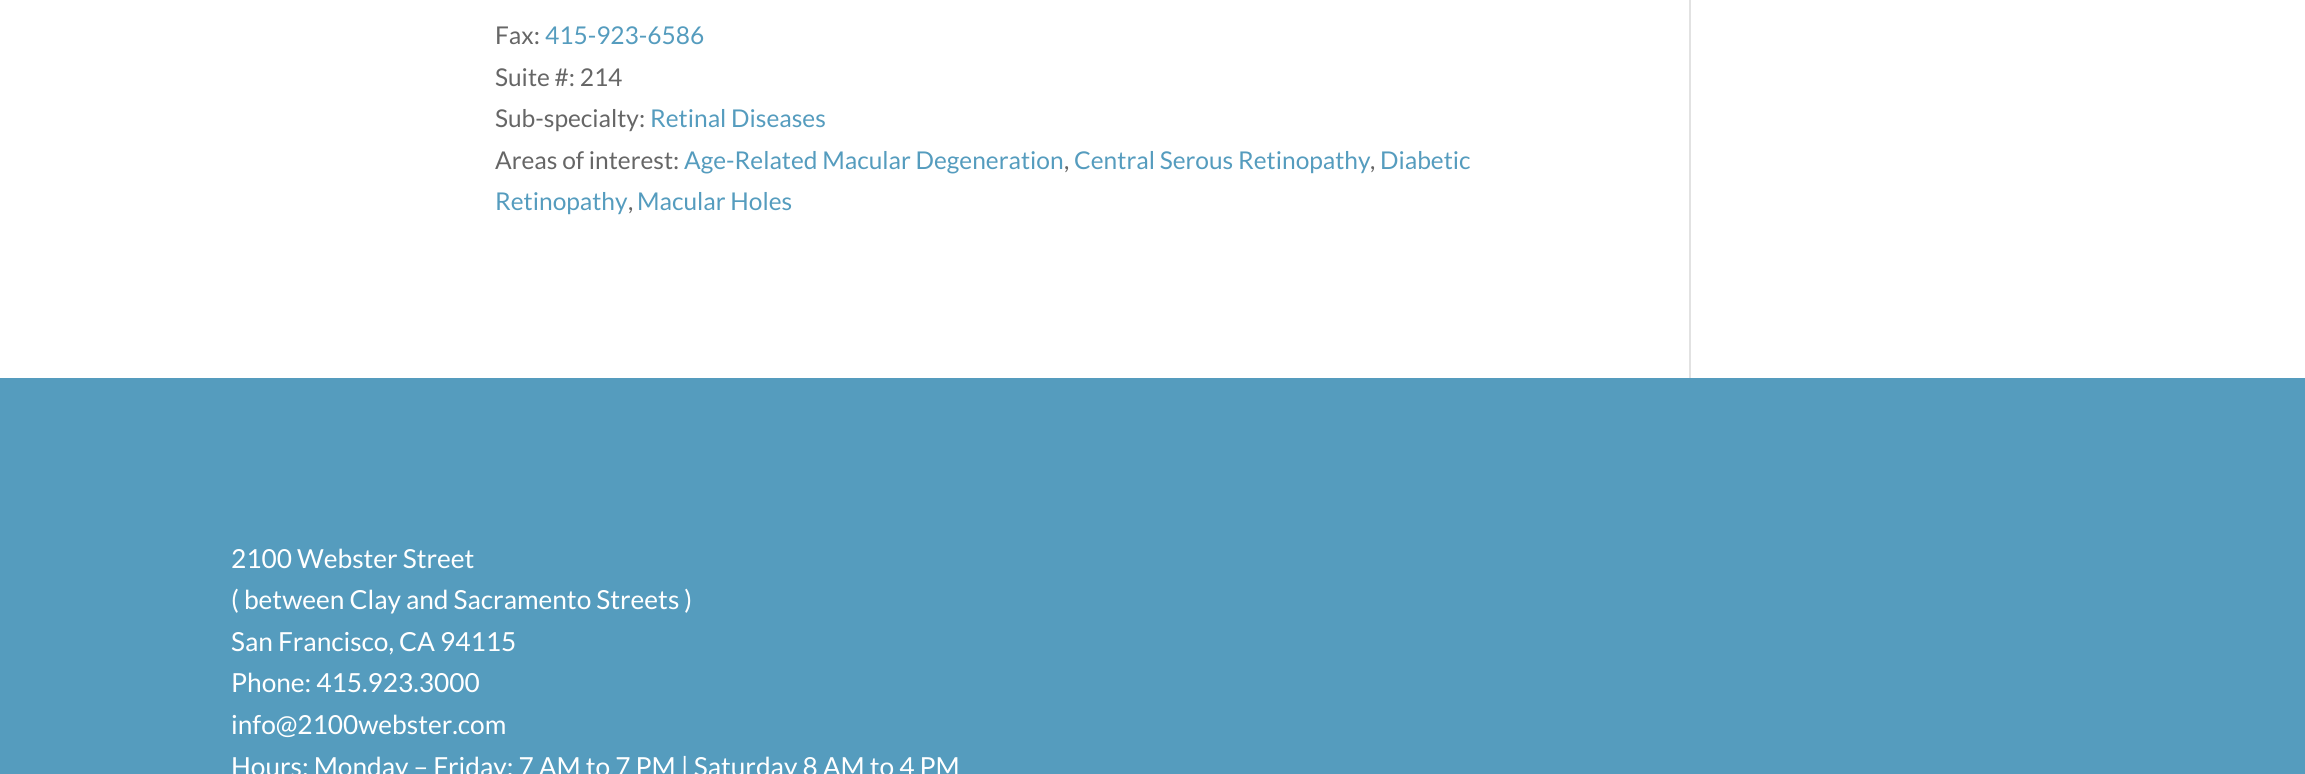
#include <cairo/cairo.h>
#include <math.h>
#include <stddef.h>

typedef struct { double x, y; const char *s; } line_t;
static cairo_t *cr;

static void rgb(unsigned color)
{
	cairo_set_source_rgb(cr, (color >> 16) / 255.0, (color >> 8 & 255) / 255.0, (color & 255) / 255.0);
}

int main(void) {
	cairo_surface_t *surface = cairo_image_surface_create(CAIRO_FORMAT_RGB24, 2305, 774);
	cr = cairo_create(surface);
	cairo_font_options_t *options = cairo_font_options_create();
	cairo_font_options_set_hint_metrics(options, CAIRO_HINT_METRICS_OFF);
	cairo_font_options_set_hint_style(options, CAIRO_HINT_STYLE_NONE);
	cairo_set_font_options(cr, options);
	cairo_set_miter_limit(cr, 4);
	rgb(0xffffff);
	cairo_paint(cr);
	rgb(0xe2e2e2);
	cairo_rectangle(cr, 1689, 0, 2, 378);
	cairo_fill(cr);
	rgb(0x559cbe);
	cairo_rectangle(cr, 0, 378, 2305, 396);
	cairo_fill(cr);
	cairo_select_font_face(cr, "Lato", CAIRO_FONT_SLANT_NORMAL, CAIRO_FONT_WEIGHT_NORMAL);
	cairo_set_font_size(cr, 24.5);
	rgb(0x666666);
	cairo_move_to(cr, 495, 44);
	cairo_show_text(cr, "Fax:");
	rgb(0x559cbe);
	cairo_move_to(cr, 545, 44);
	cairo_show_text(cr, "415-923-6586");
	rgb(0x666666);
	cairo_move_to(cr, 495, 86);
	cairo_show_text(cr, "Suite #: 214");
	cairo_move_to(cr, 495, 127);
	cairo_show_text(cr, "Sub-specialty:");
	rgb(0x559cbe);
	cairo_move_to(cr, 650, 127);
	cairo_show_text(cr, "Retinal Diseases");
	rgb(0x666666);
	cairo_move_to(cr, 495, 169);
	cairo_show_text(cr, "Areas of interest:");
	rgb(0x559cbe);
	cairo_move_to(cr, 684, 169);
	cairo_show_text(cr, "Age-Related Macular Degeneration");
	rgb(0x666666);
	cairo_move_to(cr, 1064, 169);
	cairo_show_text(cr, ",");
	rgb(0x559cbe);
	cairo_move_to(cr, 1074, 169);
	cairo_show_text(cr, "Central Serous Retinopathy");
	rgb(0x666666);
	cairo_move_to(cr, 1370, 169);
	cairo_show_text(cr, ",");
	rgb(0x559cbe);
	cairo_move_to(cr, 1380, 169);
	cairo_show_text(cr, "Diabetic");
	cairo_move_to(cr, 495, 210);
	cairo_show_text(cr, "Retinopathy");
	rgb(0x666666);
	cairo_move_to(cr, 628, 210);
	cairo_show_text(cr, ",");
	rgb(0x559cbe);
	cairo_move_to(cr, 637, 210);
	cairo_show_text(cr, "Macular Holes");
	cairo_set_font_size(cr, 26.25);
	rgb(0xffffff);
	{
		static const line_t items[] = {
			{231, 568, "2100 Webster Street"},
			{231, 609, "( between Clay and Sacramento Streets )"},
			{231, 651, "San Francisco, CA 94115"},
			{231, 692, "Phone: 415.923.3000"},
			{231, 734, "info@2100webster.com"},
			{231, 776, "Hours: Monday – Friday: 7 AM to 7 PM | Saturday 8 AM to 4 PM"},
		};
		for (size_t i = 0; i < sizeof items / sizeof *items; i++) {
			cairo_move_to(cr, items[i].x, items[i].y);
			cairo_show_text(cr, items[i].s);
		}
	}
	cairo_surface_write_to_png(surface, "page.png");
	cairo_font_options_destroy(options);
	cairo_destroy(cr);
	cairo_surface_destroy(surface);
	return 0;
}
